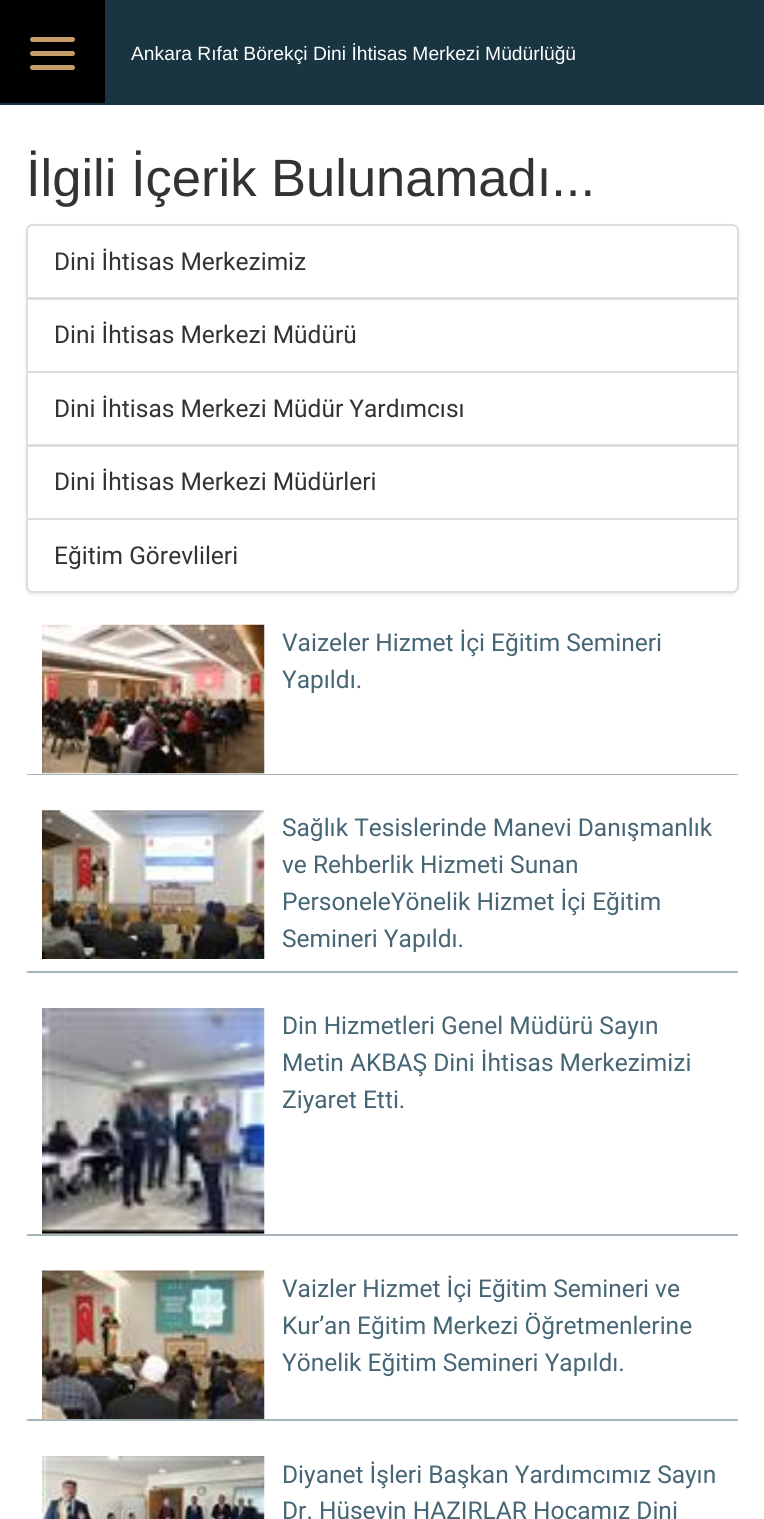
#include <cairo/cairo.h>
#include <math.h>
#include <stddef.h>

typedef struct { double x, y; const char *s; } line_t;
static cairo_t *cr;

static void rgb(unsigned color)
{
	cairo_set_source_rgb(cr, (color >> 16) / 255.0, (color >> 8 & 255) / 255.0, (color & 255) / 255.0);
}

static void rrect(double x, double y, double w, double h, double r)
{
	cairo_new_sub_path(cr);
	cairo_arc(cr, x + w - r, y + h - r, r, 0, M_PI / 2);
	cairo_arc(cr, x + r, y + h - r, r, M_PI / 2, M_PI);
	cairo_arc(cr, x + r, y + r, r, M_PI, 1.5 * M_PI);
	cairo_arc(cr, x + w - r, y + r, r, 1.5 * M_PI, 2 * M_PI);
	cairo_close_path(cr);
}

static void soft_shadow(double x, double y, double w, double h, double r, double blur, double alpha)
{
	cairo_push_group_with_content(cr, CAIRO_CONTENT_ALPHA);
	cairo_set_operator(cr, CAIRO_OPERATOR_SOURCE);
	for (int i = 15; i >= -15 && fmin(w, h) + blur * i / 3 > 0; i -= 2) {
		double e = blur * i / 6;
		cairo_set_source_rgba(cr, 0, 0, 0, alpha * erfc((i - 1) / 8.5) / 2);
		rrect(x - e, y - e, w + 2 * e, h + 2 * e, fmax(0, fmin(r + e + blur * .6, fmin(w, h) / 2 + e)));
		cairo_fill(cr);
	}
	cairo_pattern_t *soft = cairo_pop_group(cr);
	cairo_mask(cr, soft);
	cairo_pattern_destroy(soft);
}

static void image(const char *path, double x, double y, double w, double h)
{
	cairo_surface_t *image = cairo_image_surface_create_from_png(path);
	cairo_save(cr);
	cairo_set_source_surface(cr, image, x, y);
	cairo_rectangle(cr, x, y, w, h);
	cairo_fill(cr);
	cairo_restore(cr);
	cairo_surface_destroy(image);
}

int main(void) {
	cairo_surface_t *surface = cairo_image_surface_create(CAIRO_FORMAT_RGB24, 764, 1519);
	cr = cairo_create(surface);
	cairo_font_options_t *options = cairo_font_options_create();
	cairo_font_options_set_hint_metrics(options, CAIRO_HINT_METRICS_OFF);
	cairo_font_options_set_hint_style(options, CAIRO_HINT_STYLE_NONE);
	cairo_set_font_options(cr, options);
	cairo_set_miter_limit(cr, 4);
	rgb(0xffffff);
	cairo_paint(cr);
	rgb(0x193541);
	cairo_rectangle(cr, 0, 0, 764, 105);
	cairo_fill(cr);
	rgb(0x000000);
	cairo_rectangle(cr, 0, 0, 105, 103);
	cairo_fill(cr);
	rgb(0xc59b6a);
	rrect(30, 37, 45, 5, 2.5);
	cairo_fill(cr);
	rrect(30, 51, 45, 5, 2.5);
	cairo_fill(cr);
	rrect(30, 65, 45, 5, 2.5);
	cairo_fill(cr);
	rgb(0x000000);
	soft_shadow(26, 226, 713, 369, 7, 2, 0.07);
	rgb(0xffffff);
	cairo_new_path(cr);
	cairo_move_to(cr, 33, 225);
	cairo_line_to(cr, 732, 225);
	cairo_curve_to(cr, 735.5, 225, 738, 227.5, 738, 231);
	cairo_line_to(cr, 738, 298);
	cairo_line_to(cr, 27, 298);
	cairo_line_to(cr, 27, 231);
	cairo_curve_to(cr, 27, 227.5, 29.5, 225, 33, 225);
	cairo_close_path(cr);
	cairo_fill_preserve(cr);
	rgb(0xdddddd);
	cairo_stroke(cr);
	rgb(0xffffff);
	cairo_rectangle(cr, 27, 299, 711, 73);
	cairo_fill_preserve(cr);
	rgb(0xdddddd);
	cairo_stroke(cr);
	rgb(0xffffff);
	cairo_rectangle(cr, 27, 372, 711, 73);
	cairo_fill_preserve(cr);
	rgb(0xdddddd);
	cairo_stroke(cr);
	rgb(0xffffff);
	cairo_rectangle(cr, 27, 446, 711, 73);
	cairo_fill_preserve(cr);
	rgb(0xdddddd);
	cairo_stroke(cr);
	rgb(0xffffff);
	cairo_new_path(cr);
	cairo_move_to(cr, 27, 519);
	cairo_line_to(cr, 738, 519);
	cairo_line_to(cr, 738, 586);
	cairo_curve_to(cr, 738, 589.5, 735.5, 592, 732, 592);
	cairo_line_to(cr, 33, 592);
	cairo_curve_to(cr, 29.5, 592, 27, 589.5, 27, 586);
	cairo_close_path(cr);
	cairo_fill_preserve(cr);
	rgb(0xdddddd);
	cairo_stroke(cr);
	rgb(0xa7b4ba);
	cairo_new_path(cr);
	cairo_move_to(cr, 738, 775);
	cairo_line_to(cr, 26, 775);
	cairo_line_to(cr, 28, 774);
	cairo_line_to(cr, 738, 774);
	cairo_close_path(cr);
	cairo_fill(cr);
	image("img/1.png", 42, 624, 223, 150);
	cairo_new_path(cr);
	cairo_move_to(cr, 738, 973);
	cairo_line_to(cr, 26, 973);
	cairo_line_to(cr, 28, 971);
	cairo_line_to(cr, 738, 971);
	cairo_close_path(cr);
	cairo_fill(cr);
	cairo_set_source_rgba(cr, 1, 1, 1, 0.16);
	cairo_new_path(cr);
	cairo_move_to(cr, 26, 973);
	cairo_line_to(cr, 26, 796);
	cairo_line_to(cr, 28, 796);
	cairo_line_to(cr, 28, 971);
	cairo_close_path(cr);
	cairo_fill(cr);
	image("img/2.png", 42, 810, 223, 149);
	rgb(0xa7b4ba);
	cairo_new_path(cr);
	cairo_move_to(cr, 738, 1236);
	cairo_line_to(cr, 26, 1236);
	cairo_line_to(cr, 28, 1234);
	cairo_line_to(cr, 738, 1234);
	cairo_close_path(cr);
	cairo_fill(cr);
	cairo_set_source_rgba(cr, 1, 1, 1, 0.16);
	cairo_new_path(cr);
	cairo_move_to(cr, 26, 1236);
	cairo_line_to(cr, 26, 994);
	cairo_line_to(cr, 28, 994);
	cairo_line_to(cr, 28, 1234);
	cairo_close_path(cr);
	cairo_fill(cr);
	image("img/3.png", 42, 1008, 223, 226);
	rgb(0xa7b4ba);
	cairo_new_path(cr);
	cairo_move_to(cr, 738, 1421);
	cairo_line_to(cr, 26, 1421);
	cairo_line_to(cr, 28, 1419);
	cairo_line_to(cr, 738, 1419);
	cairo_close_path(cr);
	cairo_fill(cr);
	cairo_set_source_rgba(cr, 1, 1, 1, 0.16);
	cairo_new_path(cr);
	cairo_move_to(cr, 26, 1421);
	cairo_line_to(cr, 26, 1256);
	cairo_line_to(cr, 28, 1256);
	cairo_line_to(cr, 28, 1419);
	cairo_close_path(cr);
	cairo_fill(cr);
	image("img/4.png", 42, 1270, 223, 150);
	image("img/5.png", 42, 1456, 223, 63);
	cairo_select_font_face(cr, "Liberation Sans", CAIRO_FONT_SLANT_NORMAL, CAIRO_FONT_WEIGHT_NORMAL);
	cairo_set_font_size(cr, 19.25);
	rgb(0xffffff);
	cairo_move_to(cr, 131, 60);
	cairo_show_text(cr, "Ankara Rıfat Börekçi Dini İhtisas Merkezi Müdürlüğü");
	cairo_set_font_size(cr, 52.5);
	rgb(0x333333);
	cairo_move_to(cr, 26, 196);
	cairo_show_text(cr, "İlgili İçerik Bulunamadı...");
	cairo_select_font_face(cr, "Roboto", CAIRO_FONT_SLANT_NORMAL, CAIRO_FONT_WEIGHT_NORMAL);
	cairo_set_font_size(cr, 24.5);
	{
		static const line_t items[] = {
			{54, 270, "Dini İhtisas Merkezimiz"},
			{54, 343, "Dini İhtisas Merkezi Müdürü"},
			{54, 417, "Dini İhtisas Merkezi Müdür Yardımcısı"},
			{54, 490, "Dini İhtisas Merkezi Müdürleri"},
			{54, 564, "Eğitim Görevlileri"},
		};
		for (size_t i = 0; i < sizeof items / sizeof *items; i++) {
			cairo_move_to(cr, items[i].x, items[i].y);
			cairo_show_text(cr, items[i].s);
		}
	}
	rgb(0x466675);
	{
		static const line_t items[] = {
			{282, 651, "Vaizeler Hizmet İçi Eğitim Semineri"},
			{282, 688, "Yapıldı."},
			{282, 836, "Sağlık Tesislerinde Manevi Danışmanlık"},
			{282, 873, "ve Rehberlik Hizmeti Sunan"},
			{282, 910, "PersoneleYönelik Hizmet İçi Eğitim"},
			{282, 947, "Semineri Yapıldı."},
			{282, 1034, "Din Hizmetleri Genel Müdürü Sayın"},
			{282, 1071, "Metin AKBAŞ Dini İhtisas Merkezimizi"},
			{282, 1108, "Ziyaret Etti."},
			{282, 1297, "Vaizler Hizmet İçi Eğitim Semineri ve"},
			{282, 1334, "Kur’an Eğitim Merkezi Öğretmenlerine"},
			{282, 1371, "Yönelik Eğitim Semineri Yapıldı."},
			{282, 1483, "Diyanet İşleri Başkan Yardımcımız Sayın"},
			{282, 1519, "Dr. Hüseyin HAZIRLAR Hocamız Dini"},
		};
		for (size_t i = 0; i < sizeof items / sizeof *items; i++) {
			cairo_move_to(cr, items[i].x, items[i].y);
			cairo_show_text(cr, items[i].s);
		}
	}
	cairo_surface_write_to_png(surface, "page.png");
	cairo_font_options_destroy(options);
	cairo_destroy(cr);
	cairo_surface_destroy(surface);
	return 0;
}
